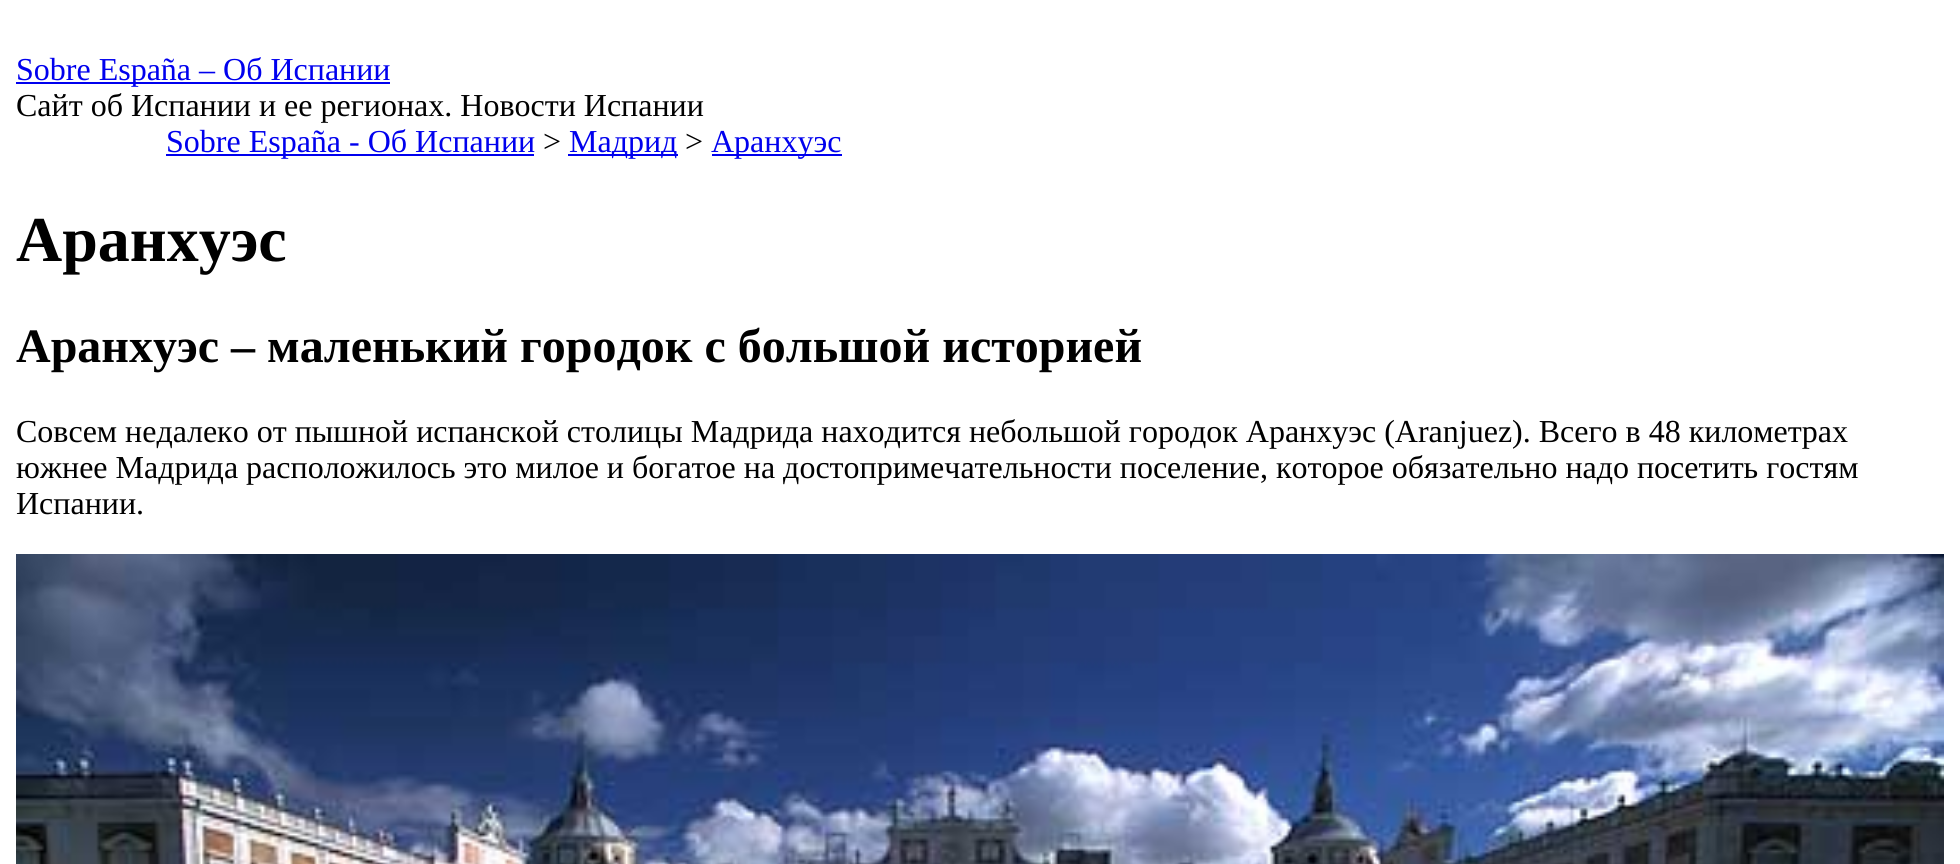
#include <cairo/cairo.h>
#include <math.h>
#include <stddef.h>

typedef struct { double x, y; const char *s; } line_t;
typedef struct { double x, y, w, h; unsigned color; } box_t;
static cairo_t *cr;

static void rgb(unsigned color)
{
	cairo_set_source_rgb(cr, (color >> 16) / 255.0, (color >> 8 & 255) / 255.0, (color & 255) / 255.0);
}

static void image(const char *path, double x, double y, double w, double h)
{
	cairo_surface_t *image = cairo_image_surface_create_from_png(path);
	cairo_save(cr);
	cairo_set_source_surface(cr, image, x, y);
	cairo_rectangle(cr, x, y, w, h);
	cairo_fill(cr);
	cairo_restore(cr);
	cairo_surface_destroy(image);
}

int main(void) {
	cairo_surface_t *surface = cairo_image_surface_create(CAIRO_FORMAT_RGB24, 1960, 864);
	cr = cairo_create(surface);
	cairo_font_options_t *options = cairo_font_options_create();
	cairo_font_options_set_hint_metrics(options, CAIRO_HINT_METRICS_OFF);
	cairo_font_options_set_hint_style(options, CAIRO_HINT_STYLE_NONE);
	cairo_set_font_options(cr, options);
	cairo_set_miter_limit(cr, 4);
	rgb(0xffffff);
	cairo_paint(cr);
	{
		static const box_t items[] = {
			{16, 82, 374, 2, 0x0000ee},
			{166, 154, 368, 2, 0x0000ee},
			{568, 154, 110, 2, 0x0000ee},
			{712, 154, 130, 2, 0x0000ee},
		};
		for (size_t i = 0; i < sizeof items / sizeof *items; i++) {
			rgb(items[i].color);
			cairo_rectangle(cr, items[i].x, items[i].y, items[i].w, items[i].h);
			cairo_fill(cr);
		}
	}
	image("img/1.png", 16, 554, 1928, 310);
	cairo_select_font_face(cr, "Liberation Serif", CAIRO_FONT_SLANT_NORMAL, CAIRO_FONT_WEIGHT_NORMAL);
	cairo_set_font_size(cr, 32);
	cairo_move_to(cr, 16, 80);
	cairo_show_text(cr, "Sobre España – Об Испании");
	rgb(0x000000);
	cairo_move_to(cr, 16, 116);
	cairo_show_text(cr, "Сайт об Испании и ее регионах. Новости Испании");
	rgb(0x0000ee);
	cairo_move_to(cr, 166, 152);
	cairo_show_text(cr, "Sobre España - Об Испании");
	rgb(0x000000);
	cairo_move_to(cr, 543, 152);
	cairo_show_text(cr, ">");
	rgb(0x0000ee);
	cairo_move_to(cr, 569, 152);
	cairo_show_text(cr, "Мадрид");
	rgb(0x000000);
	cairo_move_to(cr, 685, 152);
	cairo_show_text(cr, ">");
	rgb(0x0000ee);
	cairo_move_to(cr, 711, 152);
	cairo_show_text(cr, "Аранхуэс");
	cairo_select_font_face(cr, "Liberation Serif", CAIRO_FONT_SLANT_NORMAL, CAIRO_FONT_WEIGHT_BOLD);
	cairo_set_font_size(cr, 64);
	rgb(0x000000);
	cairo_move_to(cr, 16, 261);
	cairo_show_text(cr, "Аранхуэс");
	cairo_set_font_size(cr, 48);
	cairo_move_to(cr, 16, 362);
	cairo_show_text(cr, "Аранхуэс – маленький городок с большой историей");
	cairo_select_font_face(cr, "Liberation Serif", CAIRO_FONT_SLANT_NORMAL, CAIRO_FONT_WEIGHT_NORMAL);
	cairo_set_font_size(cr, 32);
	{
		static const line_t items[] = {
			{16, 442, "Совсем недалеко от пышной испанской столицы Мадрида находится небольшой городок Аранхуэс (Aranjuez). Всего в 48 километрах"},
			{16, 478, "южнее Мадрида расположилось это милое и богатое на достопримечательности поселение, которое обязательно надо посетить гостям"},
			{16, 514, "Испании."},
		};
		for (size_t i = 0; i < sizeof items / sizeof *items; i++) {
			cairo_move_to(cr, items[i].x, items[i].y);
			cairo_show_text(cr, items[i].s);
		}
	}
	cairo_surface_write_to_png(surface, "page.png");
	cairo_font_options_destroy(options);
	cairo_destroy(cr);
	cairo_surface_destroy(surface);
	return 0;
}
